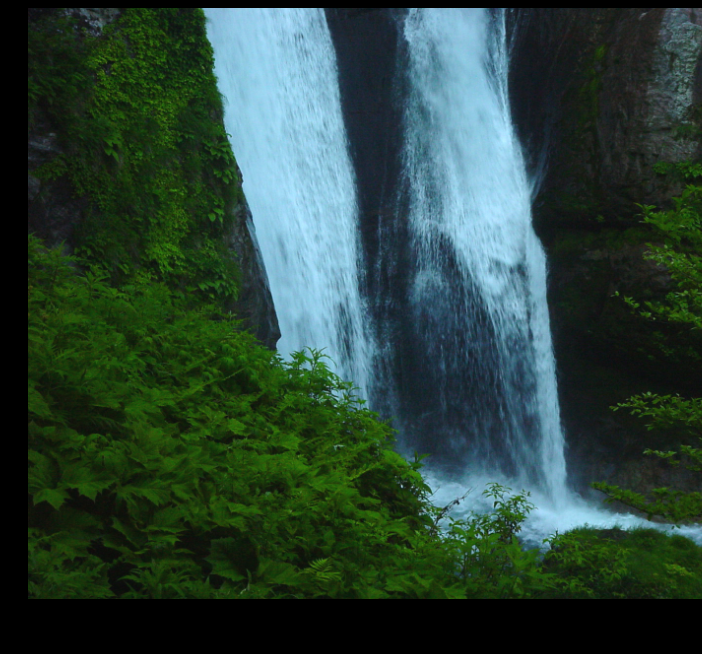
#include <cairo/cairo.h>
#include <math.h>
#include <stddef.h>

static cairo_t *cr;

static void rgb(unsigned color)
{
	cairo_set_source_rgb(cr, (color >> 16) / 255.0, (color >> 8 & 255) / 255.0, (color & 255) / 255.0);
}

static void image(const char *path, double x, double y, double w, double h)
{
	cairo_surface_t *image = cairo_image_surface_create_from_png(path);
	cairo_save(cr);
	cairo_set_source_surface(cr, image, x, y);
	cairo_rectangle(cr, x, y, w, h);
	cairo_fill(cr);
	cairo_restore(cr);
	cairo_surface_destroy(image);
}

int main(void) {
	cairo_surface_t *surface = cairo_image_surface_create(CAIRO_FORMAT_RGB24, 702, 654);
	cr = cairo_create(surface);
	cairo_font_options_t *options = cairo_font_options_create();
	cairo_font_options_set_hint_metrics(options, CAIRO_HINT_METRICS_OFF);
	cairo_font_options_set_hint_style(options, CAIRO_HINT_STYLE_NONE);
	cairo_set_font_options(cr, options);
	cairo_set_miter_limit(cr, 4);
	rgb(0x000000);
	cairo_paint(cr);
	image("img/1.png", 28, 8, 674, 591);
	cairo_surface_write_to_png(surface, "page.png");
	cairo_font_options_destroy(options);
	cairo_destroy(cr);
	cairo_surface_destroy(surface);
	return 0;
}
